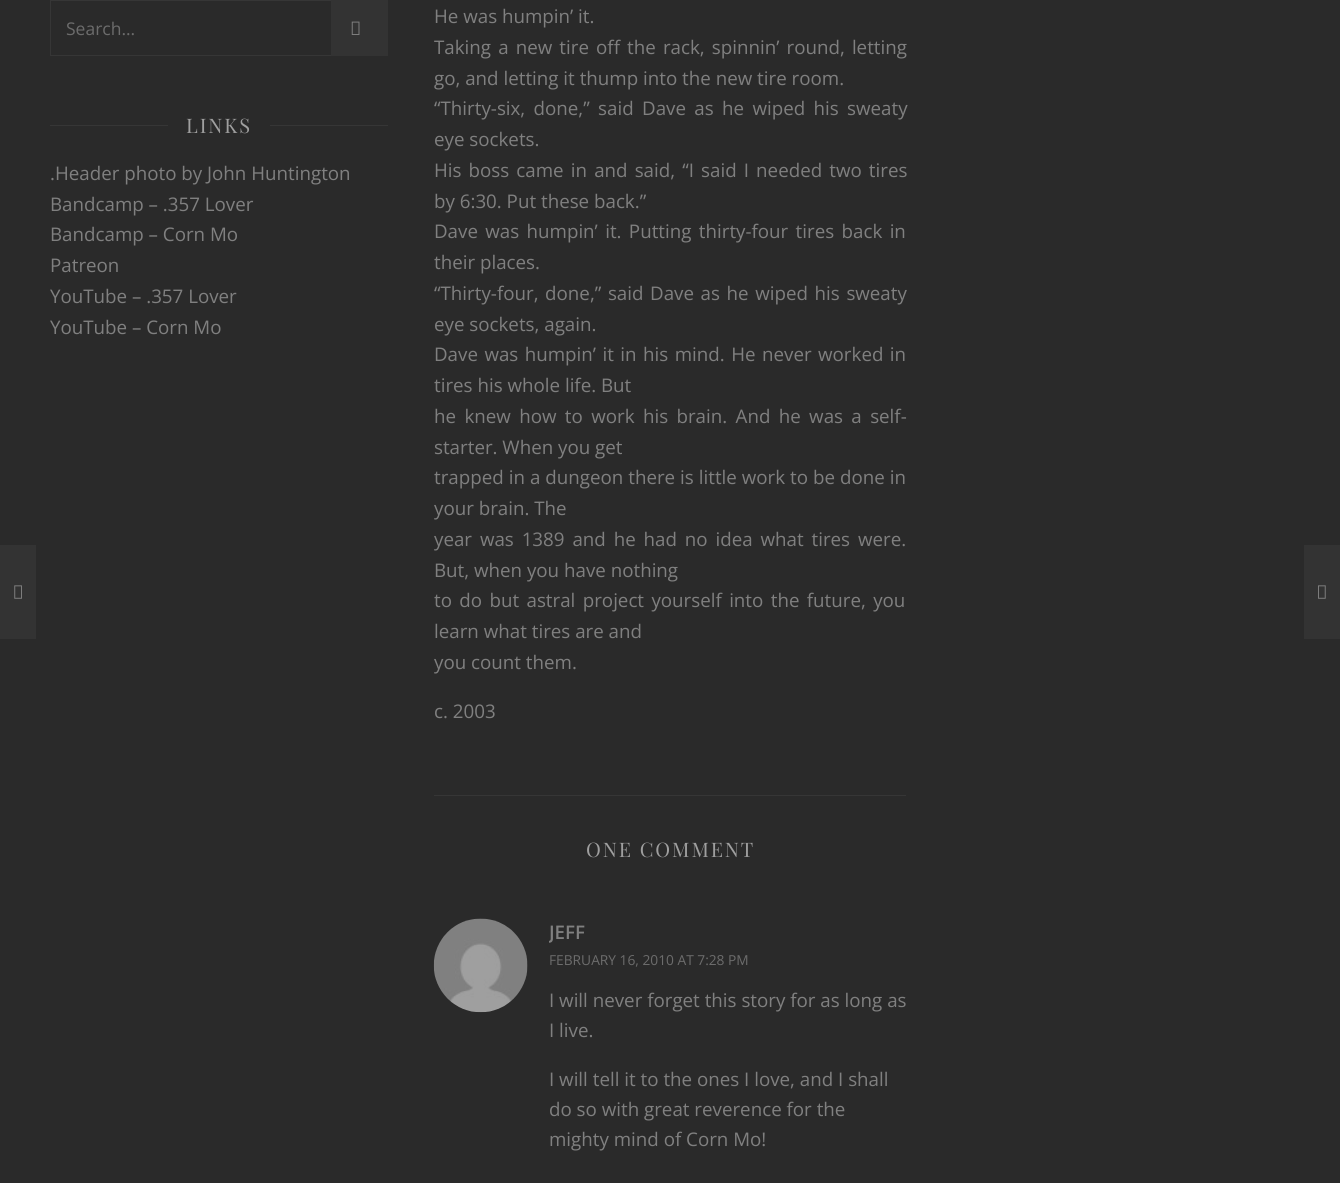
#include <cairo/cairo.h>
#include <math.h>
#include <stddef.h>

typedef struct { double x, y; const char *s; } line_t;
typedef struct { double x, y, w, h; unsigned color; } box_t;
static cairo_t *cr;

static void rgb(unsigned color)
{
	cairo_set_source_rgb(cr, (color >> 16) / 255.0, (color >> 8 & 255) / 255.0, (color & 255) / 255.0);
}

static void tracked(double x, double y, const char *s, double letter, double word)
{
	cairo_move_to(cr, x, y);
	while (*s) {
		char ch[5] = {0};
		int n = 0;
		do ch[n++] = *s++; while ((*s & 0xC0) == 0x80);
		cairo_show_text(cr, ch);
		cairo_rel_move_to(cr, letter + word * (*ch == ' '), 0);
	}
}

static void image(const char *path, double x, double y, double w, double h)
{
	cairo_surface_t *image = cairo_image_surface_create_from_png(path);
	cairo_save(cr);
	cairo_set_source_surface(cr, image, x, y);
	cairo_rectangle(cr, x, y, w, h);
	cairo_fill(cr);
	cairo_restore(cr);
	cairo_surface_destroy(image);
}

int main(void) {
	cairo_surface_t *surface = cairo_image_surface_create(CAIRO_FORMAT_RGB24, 1340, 1183);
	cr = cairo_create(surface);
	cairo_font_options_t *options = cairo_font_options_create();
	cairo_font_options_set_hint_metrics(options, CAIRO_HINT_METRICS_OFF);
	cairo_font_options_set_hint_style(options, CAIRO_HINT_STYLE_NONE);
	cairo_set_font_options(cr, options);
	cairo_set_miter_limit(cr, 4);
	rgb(0x2a2a2a);
	cairo_paint(cr);
	cairo_rectangle(cr, 50.5, 0.5, 337, 55);
	rgb(0x363636);
	cairo_set_line_width(cr, 1);
	cairo_stroke(cr);
	rgb(0x333333);
	cairo_rectangle(cr, 331, 0, 57, 56);
	cairo_fill(cr);
	image("img/1.png", 351, 21, 9, 14);
	{
		static const box_t items[] = {
			{50, 125, 118, 1, 0x363636},
			{270, 125, 118, 1, 0x363636},
			{0, 545, 36, 94, 0x333333},
		};
		for (size_t i = 0; i < sizeof items / sizeof *items; i++) {
			rgb(items[i].color);
			cairo_rectangle(cr, items[i].x, items[i].y, items[i].w, items[i].h);
			cairo_fill(cr);
		}
	}
	image("img/2.png", 14, 585, 8, 14);
	rgb(0x363636);
	cairo_rectangle(cr, 434, 795, 472, 1);
	cairo_fill(cr);
	rgb(0x333333);
	cairo_rectangle(cr, 1304, 545, 36, 94);
	cairo_fill(cr);
	image("img/3.png", 1318, 585, 8, 14);
	image("img/4.png", 433, 918, 95, 95);
	cairo_select_font_face(cr, "Open Sans", CAIRO_FONT_SLANT_NORMAL, CAIRO_FONT_WEIGHT_NORMAL);
	cairo_set_font_size(cr, 17.5);
	rgb(0x6c6c6c);
	cairo_move_to(cr, 66, 35);
	cairo_show_text(cr, "Search...");
	cairo_select_font_face(cr, "Playfair Display", CAIRO_FONT_SLANT_NORMAL, CAIRO_FONT_WEIGHT_NORMAL);
	cairo_set_font_size(cr, 20);
	rgb(0x9f9f9f);
	tracked(186, 133, "LINKS", 1.9, 0);
	cairo_select_font_face(cr, "Open Sans", CAIRO_FONT_SLANT_NORMAL, CAIRO_FONT_WEIGHT_NORMAL);
	cairo_set_font_size(cr, 18.75);
	rgb(0x808080);
	{
		static const line_t items[] = {
			{50, 180, ".Header photo by John Huntington"},
			{50, 211, "Bandcamp – .357 Lover"},
			{50, 241, "Bandcamp – Corn Mo"},
			{50, 272, "Patreon"},
			{50, 303, "YouTube – .357 Lover"},
			{50, 334, "YouTube – Corn Mo"},
			{434, 23, "He was humpin’ it."},
		};
		for (size_t i = 0; i < sizeof items / sizeof *items; i++) {
			cairo_move_to(cr, items[i].x, items[i].y);
			cairo_show_text(cr, items[i].s);
		}
	}
	tracked(434, 54, "Taking a new tire off the rack, spinnin’ round, letting", 0, 2.25);
	cairo_move_to(cr, 434, 85);
	cairo_show_text(cr, "go, and letting it thump into the new tire room.");
	tracked(434, 115, "“Thirty-six, done,” said Dave as he wiped his sweaty", 0, 3.5);
	cairo_move_to(cr, 434, 146);
	cairo_show_text(cr, "eye sockets.");
	tracked(434, 177, "His boss came in and said, “I said I needed two tires", 0, 2.25);
	cairo_move_to(cr, 434, 208);
	cairo_show_text(cr, "by 6:30. Put these back.”");
	tracked(434, 238, "Dave was humpin’ it. Putting thirty-four tires back in", 0, 2.5);
	cairo_move_to(cr, 434, 269);
	cairo_show_text(cr, "their places.");
	tracked(434, 300, "“Thirty-four, done,” said Dave as he wiped his sweaty", 0, 1.75);
	cairo_move_to(cr, 434, 331);
	cairo_show_text(cr, "eye sockets, again.");
	tracked(434, 361, "Dave was humpin’ it in his mind. He never worked in", 0, 1.6);
	cairo_move_to(cr, 434, 392);
	cairo_show_text(cr, "tires his whole life. But");
	tracked(434, 423, "he knew how to work his brain. And he was a self-", 0, 3.5);
	cairo_move_to(cr, 434, 454);
	cairo_show_text(cr, "starter. When you get");
	tracked(434, 484, "trapped in a dungeon there is little work to be done in", 0, 0.1);
	cairo_move_to(cr, 434, 515);
	cairo_show_text(cr, "your brain. The");
	tracked(434, 546, "year was 1389 and he had no idea what tires were.", 0, 3);
	cairo_move_to(cr, 434, 577);
	cairo_show_text(cr, "But, when you have nothing");
	tracked(434, 607, "to do but astral project yourself into the future, you", 0, 2.5);
	{
		static const line_t items[] = {
			{434, 638, "learn what tires are and"},
			{434, 669, "you count them."},
			{434, 718, "c. 2003"},
		};
		for (size_t i = 0; i < sizeof items / sizeof *items; i++) {
			cairo_move_to(cr, items[i].x, items[i].y);
			cairo_show_text(cr, items[i].s);
		}
	}
	cairo_select_font_face(cr, "Playfair Display", CAIRO_FONT_SLANT_NORMAL, CAIRO_FONT_WEIGHT_NORMAL);
	cairo_set_font_size(cr, 20);
	rgb(0x9f9f9f);
	tracked(586, 857, "ONE COMMENT", 1.9, 0);
	cairo_save(cr);
	cairo_rectangle(cr, 549, 919, 357, 254);
	cairo_clip(cr);
	cairo_select_font_face(cr, "Open Sans SemiBold", CAIRO_FONT_SLANT_NORMAL, CAIRO_FONT_WEIGHT_NORMAL);
	cairo_set_font_size(cr, 18.75);
	rgb(0x808080);
	cairo_move_to(cr, 549, 939);
	cairo_show_text(cr, "JEFF");
	cairo_restore(cr);
	cairo_select_font_face(cr, "Open Sans", CAIRO_FONT_SLANT_NORMAL, CAIRO_FONT_WEIGHT_NORMAL);
	cairo_set_font_size(cr, 13.75);
	rgb(0x6c6c6c);
	cairo_move_to(cr, 549, 965);
	cairo_show_text(cr, "FEBRUARY 16, 2010 AT 7:28 PM");
	cairo_set_font_size(cr, 18.75);
	rgb(0x808080);
	{
		static const line_t items[] = {
			{549, 1007, "I will never forget this story for as long as"},
			{549, 1037, "I live."},
			{549, 1086, "I will tell it to the ones I love, and I shall"},
			{549, 1116, "do so with great reverence for the"},
			{549, 1146, "mighty mind of Corn Mo!"},
		};
		for (size_t i = 0; i < sizeof items / sizeof *items; i++) {
			cairo_move_to(cr, items[i].x, items[i].y);
			cairo_show_text(cr, items[i].s);
		}
	}
	cairo_surface_write_to_png(surface, "page.png");
	cairo_font_options_destroy(options);
	cairo_destroy(cr);
	cairo_surface_destroy(surface);
	return 0;
}
